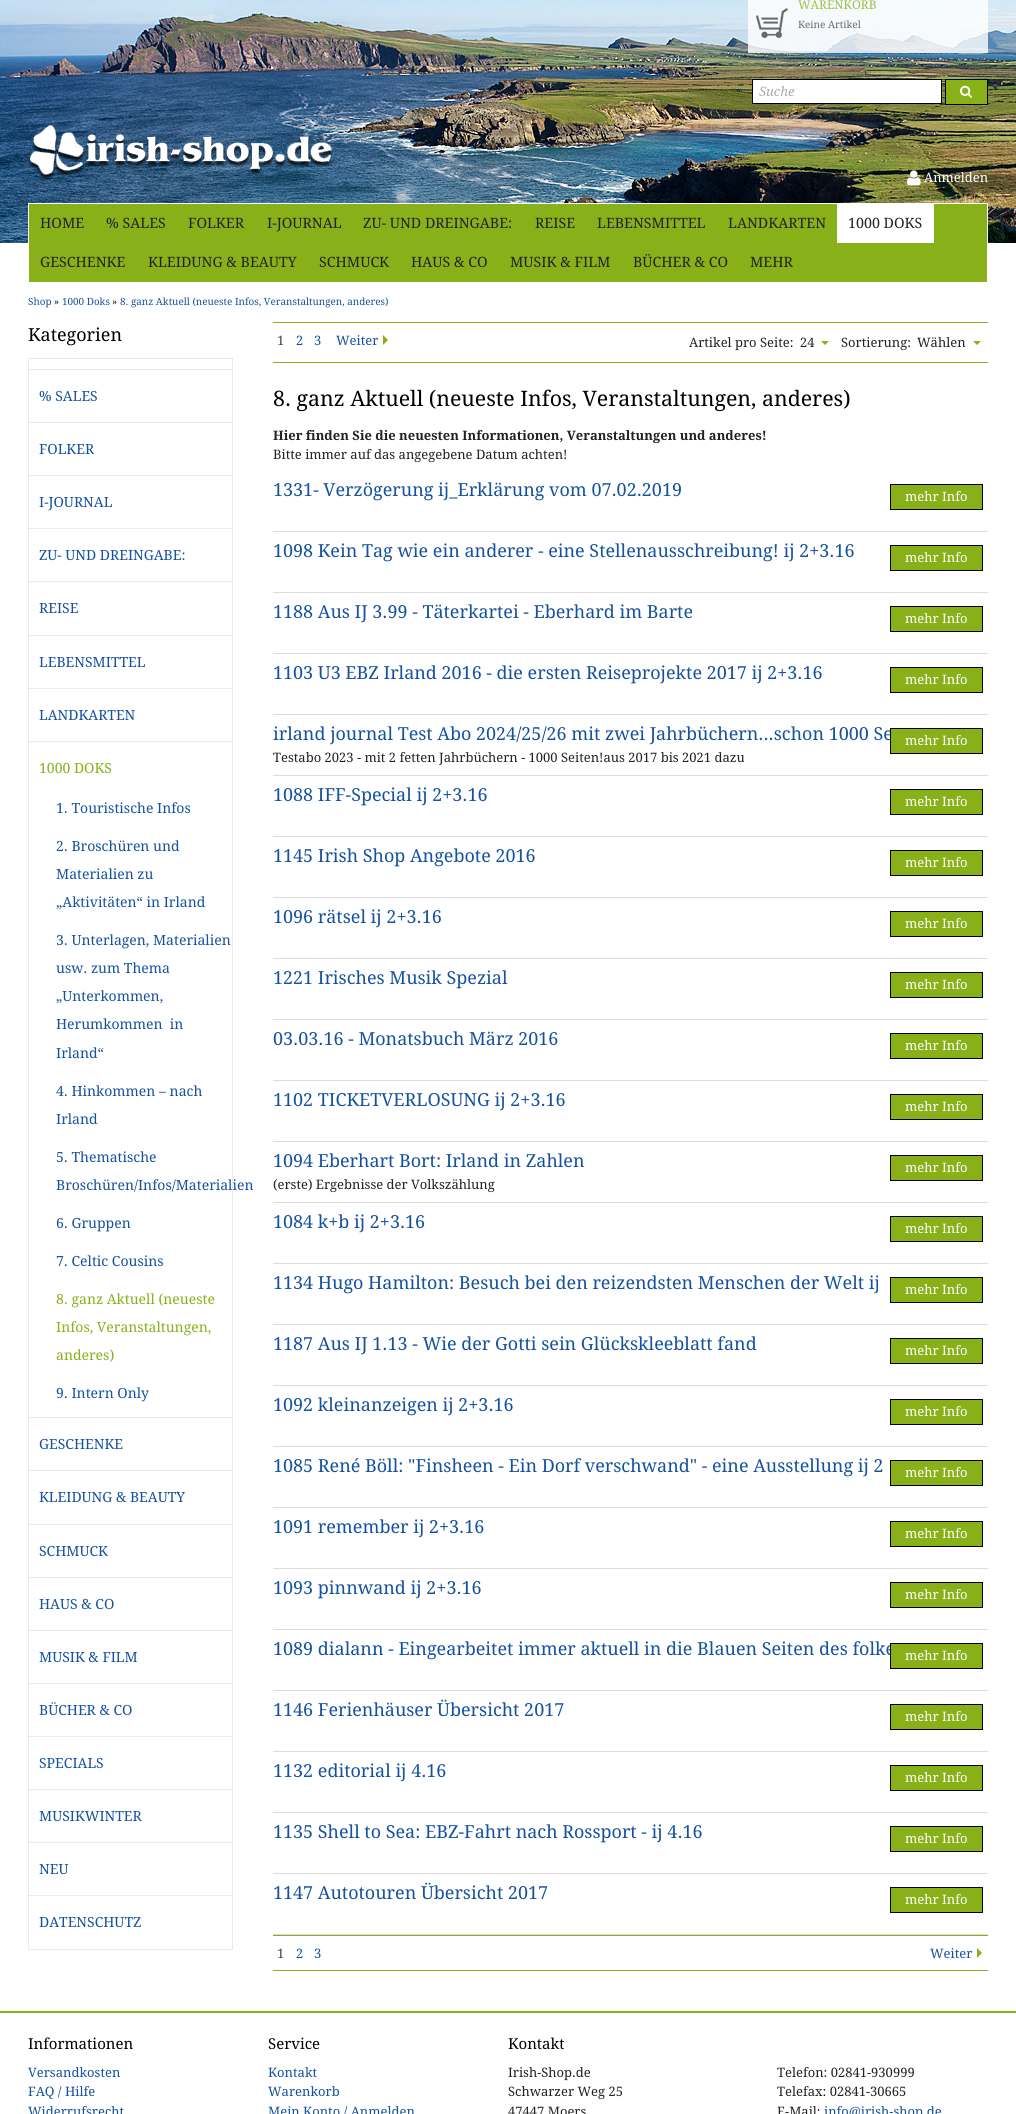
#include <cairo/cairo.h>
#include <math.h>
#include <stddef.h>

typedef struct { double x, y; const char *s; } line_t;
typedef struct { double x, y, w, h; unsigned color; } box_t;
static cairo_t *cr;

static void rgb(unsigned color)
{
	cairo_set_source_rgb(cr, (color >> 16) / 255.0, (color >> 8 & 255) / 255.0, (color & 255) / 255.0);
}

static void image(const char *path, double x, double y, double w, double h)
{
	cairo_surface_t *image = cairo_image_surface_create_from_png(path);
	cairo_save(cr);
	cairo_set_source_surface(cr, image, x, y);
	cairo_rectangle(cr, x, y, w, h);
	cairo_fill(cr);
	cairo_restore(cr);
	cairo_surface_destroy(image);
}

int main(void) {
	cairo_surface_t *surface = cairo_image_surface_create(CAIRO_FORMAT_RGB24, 1016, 2114);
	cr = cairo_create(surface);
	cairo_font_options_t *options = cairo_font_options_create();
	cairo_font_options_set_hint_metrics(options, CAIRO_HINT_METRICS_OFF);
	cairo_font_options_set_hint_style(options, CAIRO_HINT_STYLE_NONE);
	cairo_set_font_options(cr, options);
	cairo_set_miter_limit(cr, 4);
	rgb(0xffffff);
	cairo_paint(cr);
	image("img/1.png", 0, 0, 1016, 243);
	cairo_set_source_rgba(cr, 1, 1, 1, 0.8);
	cairo_rectangle(cr, 748, 0, 240, 53);
	cairo_fill(cr);
	image("img/2.png", 756, 8, 32, 30);
	image("img/3.png", 28, 125, 306, 56);
	rgb(0xffffff);
	cairo_rectangle(cr, 752.5, 79.5, 189, 24);
	cairo_fill_preserve(cr);
	rgb(0x000000);
	cairo_set_line_width(cr, 1);
	cairo_stroke(cr);
	rgb(0x88b018);
	cairo_rectangle(cr, 945.5, 79.5, 42, 25);
	cairo_fill_preserve(cr);
	rgb(0x000000);
	cairo_stroke(cr);
	image("img/4.png", 960, 85, 12, 13);
	image("img/5.png", 907, 170, 14, 16);
	rgb(0x88b018);
	cairo_rectangle(cr, 28.5, 203.5, 959, 79);
	cairo_fill_preserve(cr);
	rgb(0xffffff);
	cairo_stroke(cr);
	{
		static const box_t items[] = {
			{837, 204, 97, 39, 0xffffff},
			{28, 1949, 205, 1, 0xeaeaea},
			{28, 358, 205, 1, 0xeaeaea},
			{232, 358, 1, 11, 0xeaeaea},
			{28, 358, 1, 11, 0xeaeaea},
			{28, 369, 205, 1, 0xeaeaea},
			{232, 369, 1, 53, 0xeaeaea},
			{28, 369, 1, 53, 0xeaeaea},
			{28, 422, 205, 1, 0xeaeaea},
			{232, 422, 1, 53, 0xeaeaea},
			{28, 422, 1, 53, 0xeaeaea},
			{28, 475, 205, 1, 0xeaeaea},
			{232, 475, 1, 53, 0xeaeaea},
			{28, 475, 1, 53, 0xeaeaea},
			{28, 528, 205, 1, 0xeaeaea},
			{232, 528, 1, 53, 0xeaeaea},
			{28, 528, 1, 53, 0xeaeaea},
			{28, 581, 205, 1, 0xeaeaea},
			{232, 581, 1, 54, 0xeaeaea},
			{28, 581, 1, 54, 0xeaeaea},
			{28, 635, 205, 1, 0xeaeaea},
			{232, 635, 1, 53, 0xeaeaea},
			{28, 635, 1, 53, 0xeaeaea},
			{28, 688, 205, 1, 0xeaeaea},
			{232, 688, 1, 53, 0xeaeaea},
			{28, 688, 1, 53, 0xeaeaea},
			{28, 741, 205, 1, 0xeaeaea},
			{232, 741, 1, 676, 0xeaeaea},
			{28, 741, 1, 676, 0xeaeaea},
			{28, 1417, 205, 1, 0xeaeaea},
			{232, 1417, 1, 53, 0xeaeaea},
			{28, 1417, 1, 53, 0xeaeaea},
			{28, 1470, 205, 1, 0xeaeaea},
			{232, 1470, 1, 54, 0xeaeaea},
			{28, 1470, 1, 54, 0xeaeaea},
			{28, 1524, 205, 1, 0xeaeaea},
			{232, 1524, 1, 53, 0xeaeaea},
			{28, 1524, 1, 53, 0xeaeaea},
			{28, 1577, 205, 1, 0xeaeaea},
			{232, 1577, 1, 53, 0xeaeaea},
			{28, 1577, 1, 53, 0xeaeaea},
			{28, 1630, 205, 1, 0xeaeaea},
			{232, 1630, 1, 53, 0xeaeaea},
			{28, 1630, 1, 53, 0xeaeaea},
			{28, 1683, 205, 1, 0xeaeaea},
			{232, 1683, 1, 53, 0xeaeaea},
			{28, 1683, 1, 53, 0xeaeaea},
			{28, 1736, 205, 1, 0xeaeaea},
			{232, 1736, 1, 53, 0xeaeaea},
			{28, 1736, 1, 53, 0xeaeaea},
			{28, 1789, 205, 1, 0xeaeaea},
			{232, 1789, 1, 53, 0xeaeaea},
			{28, 1789, 1, 53, 0xeaeaea},
			{28, 1842, 205, 1, 0xeaeaea},
			{232, 1842, 1, 53, 0xeaeaea},
			{28, 1842, 1, 53, 0xeaeaea},
			{28, 1895, 205, 1, 0xeaeaea},
			{232, 1895, 1, 54, 0xeaeaea},
			{28, 1895, 1, 54, 0xeaeaea},
			{273, 322, 715, 1, 0x88b018},
			{273, 362, 715, 1, 0x88b018},
		};
		for (size_t i = 0; i < sizeof items / sizeof *items; i++) {
			rgb(items[i].color);
			cairo_rectangle(cr, items[i].x, items[i].y, items[i].w, items[i].h);
			cairo_fill(cr);
		}
	}
	cairo_new_path(cr);
	cairo_move_to(cr, 383, 345);
	cairo_line_to(cr, 383, 335);
	cairo_line_to(cr, 388, 340);
	cairo_close_path(cr);
	cairo_fill(cr);
	cairo_new_path(cr);
	cairo_move_to(cr, 821, 341);
	cairo_line_to(cr, 829, 341);
	cairo_line_to(cr, 825, 345);
	cairo_close_path(cr);
	cairo_fill(cr);
	cairo_new_path(cr);
	cairo_move_to(cr, 973, 341);
	cairo_line_to(cr, 981, 341);
	cairo_line_to(cr, 977, 345);
	cairo_close_path(cr);
	cairo_fill(cr);
	rgb(0xdcdcdc);
	cairo_rectangle(cr, 273, 531, 715, 1);
	cairo_fill(cr);
	rgb(0x88b018);
	cairo_rectangle(cr, 890.5, 484.5, 92, 25);
	cairo_fill_preserve(cr);
	rgb(0x000000);
	cairo_stroke(cr);
	rgb(0xdcdcdc);
	cairo_rectangle(cr, 273, 592, 715, 1);
	cairo_fill(cr);
	rgb(0x88b018);
	cairo_rectangle(cr, 890.5, 545.5, 92, 25);
	cairo_fill_preserve(cr);
	rgb(0x000000);
	cairo_stroke(cr);
	rgb(0xdcdcdc);
	cairo_rectangle(cr, 273, 653, 715, 1);
	cairo_fill(cr);
	rgb(0x88b018);
	cairo_rectangle(cr, 890.5, 606.5, 92, 25);
	cairo_fill_preserve(cr);
	rgb(0x000000);
	cairo_stroke(cr);
	rgb(0xdcdcdc);
	cairo_rectangle(cr, 273, 714, 715, 1);
	cairo_fill(cr);
	rgb(0x88b018);
	cairo_rectangle(cr, 890.5, 667.5, 92, 25);
	cairo_fill_preserve(cr);
	rgb(0x000000);
	cairo_stroke(cr);
	rgb(0xdcdcdc);
	cairo_rectangle(cr, 273, 775, 715, 1);
	cairo_fill(cr);
	cairo_rectangle(cr, 273, 836, 715, 1);
	cairo_fill(cr);
	rgb(0x88b018);
	cairo_rectangle(cr, 890.5, 789.5, 92, 25);
	cairo_fill_preserve(cr);
	rgb(0x000000);
	cairo_stroke(cr);
	rgb(0xdcdcdc);
	cairo_rectangle(cr, 273, 897, 715, 1);
	cairo_fill(cr);
	rgb(0x88b018);
	cairo_rectangle(cr, 890.5, 850.5, 92, 25);
	cairo_fill_preserve(cr);
	rgb(0x000000);
	cairo_stroke(cr);
	rgb(0xdcdcdc);
	cairo_rectangle(cr, 273, 958, 715, 1);
	cairo_fill(cr);
	rgb(0x88b018);
	cairo_rectangle(cr, 890.5, 911.5, 92, 25);
	cairo_fill_preserve(cr);
	rgb(0x000000);
	cairo_stroke(cr);
	rgb(0xdcdcdc);
	cairo_rectangle(cr, 273, 1019, 715, 1);
	cairo_fill(cr);
	rgb(0x88b018);
	cairo_rectangle(cr, 890.5, 972.5, 92, 25);
	cairo_fill_preserve(cr);
	rgb(0x000000);
	cairo_stroke(cr);
	rgb(0xdcdcdc);
	cairo_rectangle(cr, 273, 1080, 715, 1);
	cairo_fill(cr);
	rgb(0x88b018);
	cairo_rectangle(cr, 890.5, 1033.5, 92, 25);
	cairo_fill_preserve(cr);
	rgb(0x000000);
	cairo_stroke(cr);
	rgb(0xdcdcdc);
	cairo_rectangle(cr, 273, 1141, 715, 1);
	cairo_fill(cr);
	rgb(0x88b018);
	cairo_rectangle(cr, 890.5, 1094.5, 92, 25);
	cairo_fill_preserve(cr);
	rgb(0x000000);
	cairo_stroke(cr);
	rgb(0xdcdcdc);
	cairo_rectangle(cr, 273, 1202, 715, 1);
	cairo_fill(cr);
	rgb(0x88b018);
	cairo_rectangle(cr, 890.5, 1155.5, 92, 25);
	cairo_fill_preserve(cr);
	rgb(0x000000);
	cairo_stroke(cr);
	rgb(0xdcdcdc);
	cairo_rectangle(cr, 273, 1263, 715, 1);
	cairo_fill(cr);
	rgb(0x88b018);
	cairo_rectangle(cr, 890.5, 1216.5, 92, 25);
	cairo_fill_preserve(cr);
	rgb(0x000000);
	cairo_stroke(cr);
	rgb(0xdcdcdc);
	cairo_rectangle(cr, 273, 1324, 715, 1);
	cairo_fill(cr);
	rgb(0x88b018);
	cairo_rectangle(cr, 890.5, 1277.5, 92, 25);
	cairo_fill_preserve(cr);
	rgb(0x000000);
	cairo_stroke(cr);
	rgb(0xdcdcdc);
	cairo_rectangle(cr, 273, 1385, 715, 1);
	cairo_fill(cr);
	rgb(0x88b018);
	cairo_rectangle(cr, 890.5, 1338.5, 92, 25);
	cairo_fill_preserve(cr);
	rgb(0x000000);
	cairo_stroke(cr);
	rgb(0xdcdcdc);
	cairo_rectangle(cr, 273, 1446, 715, 1);
	cairo_fill(cr);
	rgb(0x88b018);
	cairo_rectangle(cr, 890.5, 1399.5, 92, 25);
	cairo_fill_preserve(cr);
	rgb(0x000000);
	cairo_stroke(cr);
	rgb(0xdcdcdc);
	cairo_rectangle(cr, 273, 1507, 715, 1);
	cairo_fill(cr);
	rgb(0x88b018);
	cairo_rectangle(cr, 890.5, 1460.5, 92, 25);
	cairo_fill_preserve(cr);
	rgb(0x000000);
	cairo_stroke(cr);
	rgb(0xdcdcdc);
	cairo_rectangle(cr, 273, 1568, 715, 1);
	cairo_fill(cr);
	rgb(0x88b018);
	cairo_rectangle(cr, 890.5, 1521.5, 92, 25);
	cairo_fill_preserve(cr);
	rgb(0x000000);
	cairo_stroke(cr);
	rgb(0xdcdcdc);
	cairo_rectangle(cr, 273, 1629, 715, 1);
	cairo_fill(cr);
	rgb(0x88b018);
	cairo_rectangle(cr, 890.5, 1582.5, 92, 25);
	cairo_fill_preserve(cr);
	rgb(0x000000);
	cairo_stroke(cr);
	rgb(0xdcdcdc);
	cairo_rectangle(cr, 273, 1690, 715, 1);
	cairo_fill(cr);
	cairo_rectangle(cr, 273, 1751, 715, 1);
	cairo_fill(cr);
	rgb(0x88b018);
	cairo_rectangle(cr, 890.5, 1704.5, 92, 25);
	cairo_fill_preserve(cr);
	rgb(0x000000);
	cairo_stroke(cr);
	rgb(0xdcdcdc);
	cairo_rectangle(cr, 273, 1812, 715, 1);
	cairo_fill(cr);
	rgb(0x88b018);
	cairo_rectangle(cr, 890.5, 1765.5, 92, 25);
	cairo_fill_preserve(cr);
	rgb(0x000000);
	cairo_stroke(cr);
	rgb(0xdcdcdc);
	cairo_rectangle(cr, 273, 1873, 715, 1);
	cairo_fill(cr);
	rgb(0x88b018);
	cairo_rectangle(cr, 890.5, 1826.5, 92, 25);
	cairo_fill_preserve(cr);
	rgb(0x000000);
	cairo_stroke(cr);
	rgb(0xdcdcdc);
	cairo_rectangle(cr, 273, 1934, 715, 1);
	cairo_fill(cr);
	rgb(0x88b018);
	cairo_rectangle(cr, 890.5, 1887.5, 92, 25);
	cairo_fill_preserve(cr);
	rgb(0x000000);
	cairo_stroke(cr);
	rgb(0x88b018);
	cairo_rectangle(cr, 273, 1935, 715, 1);
	cairo_fill(cr);
	cairo_rectangle(cr, 273, 1970, 715, 1);
	cairo_fill(cr);
	cairo_new_path(cr);
	cairo_move_to(cr, 977, 1958);
	cairo_line_to(cr, 977, 1948);
	cairo_line_to(cr, 982, 1953);
	cairo_close_path(cr);
	cairo_fill(cr);
	cairo_rectangle(cr, 0, 2011, 1016, 2);
	cairo_fill(cr);
	cairo_select_font_face(cr, "Droid Serif", CAIRO_FONT_SLANT_NORMAL, CAIRO_FONT_WEIGHT_NORMAL);
	cairo_set_font_size(cr, 12);
	rgb(0x9ebf46);
	cairo_move_to(cr, 798, 9);
	cairo_show_text(cr, "WARENKORB");
	cairo_set_font_size(cr, 10);
	rgb(0x68696a);
	cairo_move_to(cr, 798, 28);
	cairo_show_text(cr, "Keine Artikel");
	cairo_select_font_face(cr, "Droid Serif", CAIRO_FONT_SLANT_ITALIC, CAIRO_FONT_WEIGHT_NORMAL);
	cairo_set_font_size(cr, 13);
	rgb(0xaaaaaa);
	cairo_move_to(cr, 759, 96);
	cairo_show_text(cr, "Suche");
	cairo_select_font_face(cr, "Droid Serif", CAIRO_FONT_SLANT_NORMAL, CAIRO_FONT_WEIGHT_NORMAL);
	rgb(0xffffff);
	cairo_move_to(cr, 924, 182);
	cairo_show_text(cr, "Anmelden");
	cairo_set_font_size(cr, 14.25);
	rgb(0x222222);
	{
		static const line_t items[] = {
			{40, 228, "HOME"},
			{106, 228, "% SALES"},
			{188, 228, "FOLKER"},
			{267, 228, "I-JOURNAL"},
			{363, 228, "ZU- UND DREINGABE:"},
			{535, 228, "REISE"},
			{597, 228, "LEBENSMITTEL"},
			{728, 228, "LANDKARTEN"},
			{848, 228, "1000 DOKS"},
			{40, 267, "GESCHENKE"},
			{148, 267, "KLEIDUNG & BEAUTY"},
			{319, 267, "SCHMUCK"},
			{411, 267, "HAUS & CO"},
			{510, 267, "MUSIK & FILM"},
			{633, 267, "BÜCHER & CO"},
			{750, 267, "MEHR"},
		};
		for (size_t i = 0; i < sizeof items / sizeof *items; i++) {
			cairo_move_to(cr, items[i].x, items[i].y);
			cairo_show_text(cr, items[i].s);
		}
	}
	cairo_set_font_size(cr, 9.9);
	rgb(0x14519f);
	cairo_move_to(cr, 28, 305);
	cairo_show_text(cr, "Shop");
	rgb(0x222222);
	cairo_move_to(cr, 54, 305);
	cairo_show_text(cr, "»");
	rgb(0x14519f);
	cairo_move_to(cr, 62, 305);
	cairo_show_text(cr, "1000 Doks");
	rgb(0x222222);
	cairo_move_to(cr, 112, 305);
	cairo_show_text(cr, "»");
	rgb(0x14519f);
	cairo_move_to(cr, 120, 305);
	cairo_show_text(cr, "8. ganz Aktuell (neueste Infos, Veranstaltungen, anderes)");
	cairo_set_font_size(cr, 17.95);
	rgb(0x000000);
	cairo_move_to(cr, 28, 341);
	cairo_show_text(cr, "Kategorien");
	cairo_set_font_size(cr, 14);
	rgb(0x14519f);
	{
		static const line_t items[] = {
			{39, 401, "% SALES"},
			{39, 454, "FOLKER"},
			{39, 507, "I-JOURNAL"},
			{39, 560, "ZU- UND DREINGABE:"},
			{39, 613, "REISE"},
			{39, 667, "LEBENSMITTEL"},
			{39, 720, "LANDKARTEN"},
		};
		for (size_t i = 0; i < sizeof items / sizeof *items; i++) {
			cairo_move_to(cr, items[i].x, items[i].y);
			cairo_show_text(cr, items[i].s);
		}
	}
	rgb(0x88b018);
	cairo_move_to(cr, 39, 773);
	cairo_show_text(cr, "1000 DOKS");
	rgb(0x14519f);
	{
		static const line_t items[] = {
			{56, 813, "1. Touristische Infos"},
			{56, 851, "2. Broschüren und"},
			{56, 879, "Materialien zu"},
			{56, 907, "„Aktivitäten“ in Irland"},
			{56, 945, "3. Unterlagen, Materialien"},
			{56, 973, "usw. zum Thema"},
			{56, 1001, "„Unterkommen,"},
			{56, 1029, "Herumkommen  in"},
			{56, 1058, "Irland“"},
			{56, 1096, "4. Hinkommen – nach"},
			{56, 1124, "Irland"},
			{56, 1162, "5. Thematische"},
			{56, 1190, "Broschüren/Infos/Materialien"},
			{56, 1228, "6. Gruppen"},
			{56, 1266, "7. Celtic Cousins"},
		};
		for (size_t i = 0; i < sizeof items / sizeof *items; i++) {
			cairo_move_to(cr, items[i].x, items[i].y);
			cairo_show_text(cr, items[i].s);
		}
	}
	rgb(0x88b018);
	{
		static const line_t items[] = {
			{56, 1304, "8. ganz Aktuell (neueste"},
			{56, 1332, "Infos, Veranstaltungen,"},
			{56, 1360, "anderes)"},
		};
		for (size_t i = 0; i < sizeof items / sizeof *items; i++) {
			cairo_move_to(cr, items[i].x, items[i].y);
			cairo_show_text(cr, items[i].s);
		}
	}
	rgb(0x14519f);
	{
		static const line_t items[] = {
			{56, 1398, "9. Intern Only"},
			{39, 1449, "GESCHENKE"},
			{39, 1502, "KLEIDUNG & BEAUTY"},
			{39, 1556, "SCHMUCK"},
			{39, 1609, "HAUS & CO"},
			{39, 1662, "MUSIK & FILM"},
			{39, 1715, "BÜCHER & CO"},
			{39, 1768, "SPECIALS"},
			{39, 1821, "MUSIKWINTER"},
			{39, 1874, "NEU"},
			{39, 1927, "DATENSCHUTZ"},
		};
		for (size_t i = 0; i < sizeof items / sizeof *items; i++) {
			cairo_move_to(cr, items[i].x, items[i].y);
			cairo_show_text(cr, items[i].s);
		}
	}
	cairo_set_font_size(cr, 13);
	rgb(0x454545);
	cairo_move_to(cr, 277, 345);
	cairo_show_text(cr, "1");
	rgb(0x14519f);
	{
		static const line_t items[] = {
			{296, 345, "2"},
			{314, 345, "3"},
			{336, 345, "Weiter"},
		};
		for (size_t i = 0; i < sizeof items / sizeof *items; i++) {
			cairo_move_to(cr, items[i].x, items[i].y);
			cairo_show_text(cr, items[i].s);
		}
	}
	rgb(0x222222);
	{
		static const line_t items[] = {
			{689, 347, "Artikel pro Seite:"},
			{800, 347, "24"},
			{841, 347, "Sortierung:"},
			{917, 347, "Wählen"},
		};
		for (size_t i = 0; i < sizeof items / sizeof *items; i++) {
			cairo_move_to(cr, items[i].x, items[i].y);
			cairo_show_text(cr, items[i].s);
		}
	}
	cairo_set_font_size(cr, 21.3);
	rgb(0x000000);
	cairo_move_to(cr, 273, 406);
	cairo_show_text(cr, "8. ganz Aktuell (neueste Infos, Veranstaltungen, anderes)");
	cairo_select_font_face(cr, "Droid Serif", CAIRO_FONT_SLANT_NORMAL, CAIRO_FONT_WEIGHT_BOLD);
	cairo_set_font_size(cr, 13);
	rgb(0x222222);
	cairo_move_to(cr, 273, 440);
	cairo_show_text(cr, "Hier finden Sie die neuesten Informationen, Veranstaltungen und anderes!");
	cairo_select_font_face(cr, "Droid Serif", CAIRO_FONT_SLANT_NORMAL, CAIRO_FONT_WEIGHT_NORMAL);
	cairo_move_to(cr, 273, 459);
	cairo_show_text(cr, "Bitte immer auf das angegebene Datum achten!");
	cairo_set_font_size(cr, 17.95);
	rgb(0x14519f);
	cairo_move_to(cr, 273, 496);
	cairo_show_text(cr, "1331- Verzögerung ij_Erklärung vom 07.02.2019");
	cairo_set_font_size(cr, 13);
	rgb(0xffffff);
	cairo_move_to(cr, 905, 501);
	cairo_show_text(cr, "mehr Info");
	cairo_set_font_size(cr, 17.95);
	rgb(0x14519f);
	cairo_move_to(cr, 273, 557);
	cairo_show_text(cr, "1098 Kein Tag wie ein anderer - eine Stellenausschreibung! ij 2+3.16");
	cairo_set_font_size(cr, 13);
	rgb(0xffffff);
	cairo_move_to(cr, 905, 562);
	cairo_show_text(cr, "mehr Info");
	cairo_set_font_size(cr, 17.95);
	rgb(0x14519f);
	cairo_move_to(cr, 273, 618);
	cairo_show_text(cr, "1188 Aus IJ 3.99 - Täterkartei - Eberhard im Barte");
	cairo_set_font_size(cr, 13);
	rgb(0xffffff);
	cairo_move_to(cr, 905, 623);
	cairo_show_text(cr, "mehr Info");
	cairo_set_font_size(cr, 17.95);
	rgb(0x14519f);
	cairo_move_to(cr, 273, 679);
	cairo_show_text(cr, "1103 U3 EBZ Irland 2016 - die ersten Reiseprojekte 2017 ij 2+3.16");
	cairo_set_font_size(cr, 13);
	rgb(0xffffff);
	cairo_move_to(cr, 905, 684);
	cairo_show_text(cr, "mehr Info");
	cairo_set_font_size(cr, 17.95);
	rgb(0x14519f);
	cairo_move_to(cr, 273, 740);
	cairo_show_text(cr, "irland journal Test Abo 2024/25/26 mit zwei Jahrbüchern...schon 1000 Se");
	cairo_set_font_size(cr, 13);
	rgb(0x222222);
	cairo_move_to(cr, 273, 762);
	cairo_show_text(cr, "Testabo 2023 - mit 2 fetten Jahrbüchern - 1000 Seiten!aus 2017 bis 2021 dazu");
	rgb(0x88b018);
	cairo_rectangle(cr, 890.5, 728.5, 92, 25);
	cairo_fill_preserve(cr);
	rgb(0x000000);
	cairo_stroke(cr);
	rgb(0xffffff);
	cairo_move_to(cr, 905, 745);
	cairo_show_text(cr, "mehr Info");
	cairo_set_font_size(cr, 17.95);
	rgb(0x14519f);
	cairo_move_to(cr, 273, 801);
	cairo_show_text(cr, "1088 IFF-Special ij 2+3.16");
	cairo_set_font_size(cr, 13);
	rgb(0xffffff);
	cairo_move_to(cr, 905, 806);
	cairo_show_text(cr, "mehr Info");
	cairo_set_font_size(cr, 17.95);
	rgb(0x14519f);
	cairo_move_to(cr, 273, 862);
	cairo_show_text(cr, "1145 Irish Shop Angebote 2016");
	cairo_set_font_size(cr, 13);
	rgb(0xffffff);
	cairo_move_to(cr, 905, 867);
	cairo_show_text(cr, "mehr Info");
	cairo_set_font_size(cr, 17.95);
	rgb(0x14519f);
	cairo_move_to(cr, 273, 923);
	cairo_show_text(cr, "1096 rätsel ij 2+3.16");
	cairo_set_font_size(cr, 13);
	rgb(0xffffff);
	cairo_move_to(cr, 905, 928);
	cairo_show_text(cr, "mehr Info");
	cairo_set_font_size(cr, 17.95);
	rgb(0x14519f);
	cairo_move_to(cr, 273, 984);
	cairo_show_text(cr, "1221 Irisches Musik Spezial");
	cairo_set_font_size(cr, 13);
	rgb(0xffffff);
	cairo_move_to(cr, 905, 989);
	cairo_show_text(cr, "mehr Info");
	cairo_set_font_size(cr, 17.95);
	rgb(0x14519f);
	cairo_move_to(cr, 273, 1045);
	cairo_show_text(cr, "03.03.16 - Monatsbuch März 2016");
	cairo_set_font_size(cr, 13);
	rgb(0xffffff);
	cairo_move_to(cr, 905, 1050);
	cairo_show_text(cr, "mehr Info");
	cairo_set_font_size(cr, 17.95);
	rgb(0x14519f);
	cairo_move_to(cr, 273, 1106);
	cairo_show_text(cr, "1102 TICKETVERLOSUNG ij 2+3.16");
	cairo_set_font_size(cr, 13);
	rgb(0xffffff);
	cairo_move_to(cr, 905, 1111);
	cairo_show_text(cr, "mehr Info");
	cairo_set_font_size(cr, 17.95);
	rgb(0x14519f);
	cairo_move_to(cr, 273, 1167);
	cairo_show_text(cr, "1094 Eberhart Bort: Irland in Zahlen");
	cairo_set_font_size(cr, 13);
	rgb(0x222222);
	cairo_move_to(cr, 273, 1189);
	cairo_show_text(cr, "(erste) Ergebnisse der Volkszählung");
	rgb(0xffffff);
	cairo_move_to(cr, 905, 1172);
	cairo_show_text(cr, "mehr Info");
	cairo_set_font_size(cr, 17.95);
	rgb(0x14519f);
	cairo_move_to(cr, 273, 1228);
	cairo_show_text(cr, "1084 k+b ij 2+3.16");
	cairo_set_font_size(cr, 13);
	rgb(0xffffff);
	cairo_move_to(cr, 905, 1233);
	cairo_show_text(cr, "mehr Info");
	cairo_set_font_size(cr, 17.95);
	rgb(0x14519f);
	cairo_move_to(cr, 273, 1289);
	cairo_show_text(cr, "1134 Hugo Hamilton: Besuch bei den reizendsten Menschen der Welt ij");
	cairo_set_font_size(cr, 13);
	rgb(0xffffff);
	cairo_move_to(cr, 905, 1294);
	cairo_show_text(cr, "mehr Info");
	cairo_set_font_size(cr, 17.95);
	rgb(0x14519f);
	cairo_move_to(cr, 273, 1350);
	cairo_show_text(cr, "1187 Aus IJ 1.13 - Wie der Gotti sein Glückskleeblatt fand");
	cairo_set_font_size(cr, 13);
	rgb(0xffffff);
	cairo_move_to(cr, 905, 1355);
	cairo_show_text(cr, "mehr Info");
	cairo_set_font_size(cr, 17.95);
	rgb(0x14519f);
	cairo_move_to(cr, 273, 1411);
	cairo_show_text(cr, "1092 kleinanzeigen ij 2+3.16");
	cairo_set_font_size(cr, 13);
	rgb(0xffffff);
	cairo_move_to(cr, 905, 1416);
	cairo_show_text(cr, "mehr Info");
	cairo_set_font_size(cr, 17.95);
	rgb(0x14519f);
	cairo_move_to(cr, 273, 1472);
	cairo_show_text(cr, "1085 René Böll: \"Finsheen - Ein Dorf verschwand\" - eine Ausstellung ij 2");
	cairo_set_font_size(cr, 13);
	rgb(0xffffff);
	cairo_move_to(cr, 905, 1477);
	cairo_show_text(cr, "mehr Info");
	cairo_set_font_size(cr, 17.95);
	rgb(0x14519f);
	cairo_move_to(cr, 273, 1533);
	cairo_show_text(cr, "1091 remember ij 2+3.16");
	cairo_set_font_size(cr, 13);
	rgb(0xffffff);
	cairo_move_to(cr, 905, 1538);
	cairo_show_text(cr, "mehr Info");
	cairo_set_font_size(cr, 17.95);
	rgb(0x14519f);
	cairo_move_to(cr, 273, 1594);
	cairo_show_text(cr, "1093 pinnwand ij 2+3.16");
	cairo_set_font_size(cr, 13);
	rgb(0xffffff);
	cairo_move_to(cr, 905, 1599);
	cairo_show_text(cr, "mehr Info");
	cairo_set_font_size(cr, 17.95);
	rgb(0x14519f);
	cairo_move_to(cr, 273, 1655);
	cairo_show_text(cr, "1089 dialann - Eingearbeitet immer aktuell in die Blauen Seiten des folke");
	rgb(0x88b018);
	cairo_rectangle(cr, 890.5, 1643.5, 92, 25);
	cairo_fill_preserve(cr);
	rgb(0x000000);
	cairo_stroke(cr);
	cairo_set_font_size(cr, 13);
	rgb(0xffffff);
	cairo_move_to(cr, 905, 1660);
	cairo_show_text(cr, "mehr Info");
	cairo_set_font_size(cr, 17.95);
	rgb(0x14519f);
	cairo_move_to(cr, 273, 1716);
	cairo_show_text(cr, "1146 Ferienhäuser Übersicht 2017");
	cairo_set_font_size(cr, 13);
	rgb(0xffffff);
	cairo_move_to(cr, 905, 1721);
	cairo_show_text(cr, "mehr Info");
	cairo_set_font_size(cr, 17.95);
	rgb(0x14519f);
	cairo_move_to(cr, 273, 1777);
	cairo_show_text(cr, "1132 editorial ij 4.16");
	cairo_set_font_size(cr, 13);
	rgb(0xffffff);
	cairo_move_to(cr, 905, 1782);
	cairo_show_text(cr, "mehr Info");
	cairo_set_font_size(cr, 17.95);
	rgb(0x14519f);
	cairo_move_to(cr, 273, 1838);
	cairo_show_text(cr, "1135 Shell to Sea: EBZ-Fahrt nach Rossport - ij 4.16");
	cairo_set_font_size(cr, 13);
	rgb(0xffffff);
	cairo_move_to(cr, 905, 1843);
	cairo_show_text(cr, "mehr Info");
	cairo_set_font_size(cr, 17.95);
	rgb(0x14519f);
	cairo_move_to(cr, 273, 1899);
	cairo_show_text(cr, "1147 Autotouren Übersicht 2017");
	cairo_set_font_size(cr, 13);
	rgb(0xffffff);
	cairo_move_to(cr, 905, 1904);
	cairo_show_text(cr, "mehr Info");
	rgb(0x454545);
	cairo_move_to(cr, 277, 1958);
	cairo_show_text(cr, "1");
	rgb(0x14519f);
	{
		static const line_t items[] = {
			{296, 1958, "2"},
			{314, 1958, "3"},
			{930, 1958, "Weiter"},
		};
		for (size_t i = 0; i < sizeof items / sizeof *items; i++) {
			cairo_move_to(cr, items[i].x, items[i].y);
			cairo_show_text(cr, items[i].s);
		}
	}
	cairo_set_font_size(cr, 15);
	rgb(0x000000);
	cairo_move_to(cr, 28, 2049);
	cairo_show_text(cr, "Informationen");
	cairo_set_font_size(cr, 13);
	rgb(0x14519f);
	{
		static const line_t items[] = {
			{28, 2077, "Versandkosten"},
			{28, 2096, "FAQ / Hilfe"},
			{28, 2116, "Widerrufsrecht"},
		};
		for (size_t i = 0; i < sizeof items / sizeof *items; i++) {
			cairo_move_to(cr, items[i].x, items[i].y);
			cairo_show_text(cr, items[i].s);
		}
	}
	cairo_set_font_size(cr, 15);
	rgb(0x000000);
	cairo_move_to(cr, 268, 2049);
	cairo_show_text(cr, "Service");
	cairo_set_font_size(cr, 13);
	rgb(0x14519f);
	{
		static const line_t items[] = {
			{268, 2077, "Kontakt"},
			{268, 2096, "Warenkorb"},
			{268, 2116, "Mein Konto / Anmelden"},
		};
		for (size_t i = 0; i < sizeof items / sizeof *items; i++) {
			cairo_move_to(cr, items[i].x, items[i].y);
			cairo_show_text(cr, items[i].s);
		}
	}
	cairo_set_font_size(cr, 15);
	rgb(0x000000);
	cairo_move_to(cr, 508, 2049);
	cairo_show_text(cr, "Kontakt");
	cairo_set_font_size(cr, 13);
	rgb(0x222222);
	{
		static const line_t items[] = {
			{508, 2077, "Irish-Shop.de"},
			{508, 2096, "Schwarzer Weg 25"},
			{508, 2116, "47447 Moers"},
			{777, 2077, "Telefon: 02841-930999"},
			{777, 2096, "Telefax: 02841-30665"},
			{777, 2116, "E-Mail:"},
		};
		for (size_t i = 0; i < sizeof items / sizeof *items; i++) {
			cairo_move_to(cr, items[i].x, items[i].y);
			cairo_show_text(cr, items[i].s);
		}
	}
	rgb(0x14519f);
	cairo_move_to(cr, 824, 2116);
	cairo_show_text(cr, "info@irish-shop.de");
	cairo_surface_write_to_png(surface, "page.png");
	cairo_font_options_destroy(options);
	cairo_destroy(cr);
	cairo_surface_destroy(surface);
	return 0;
}
